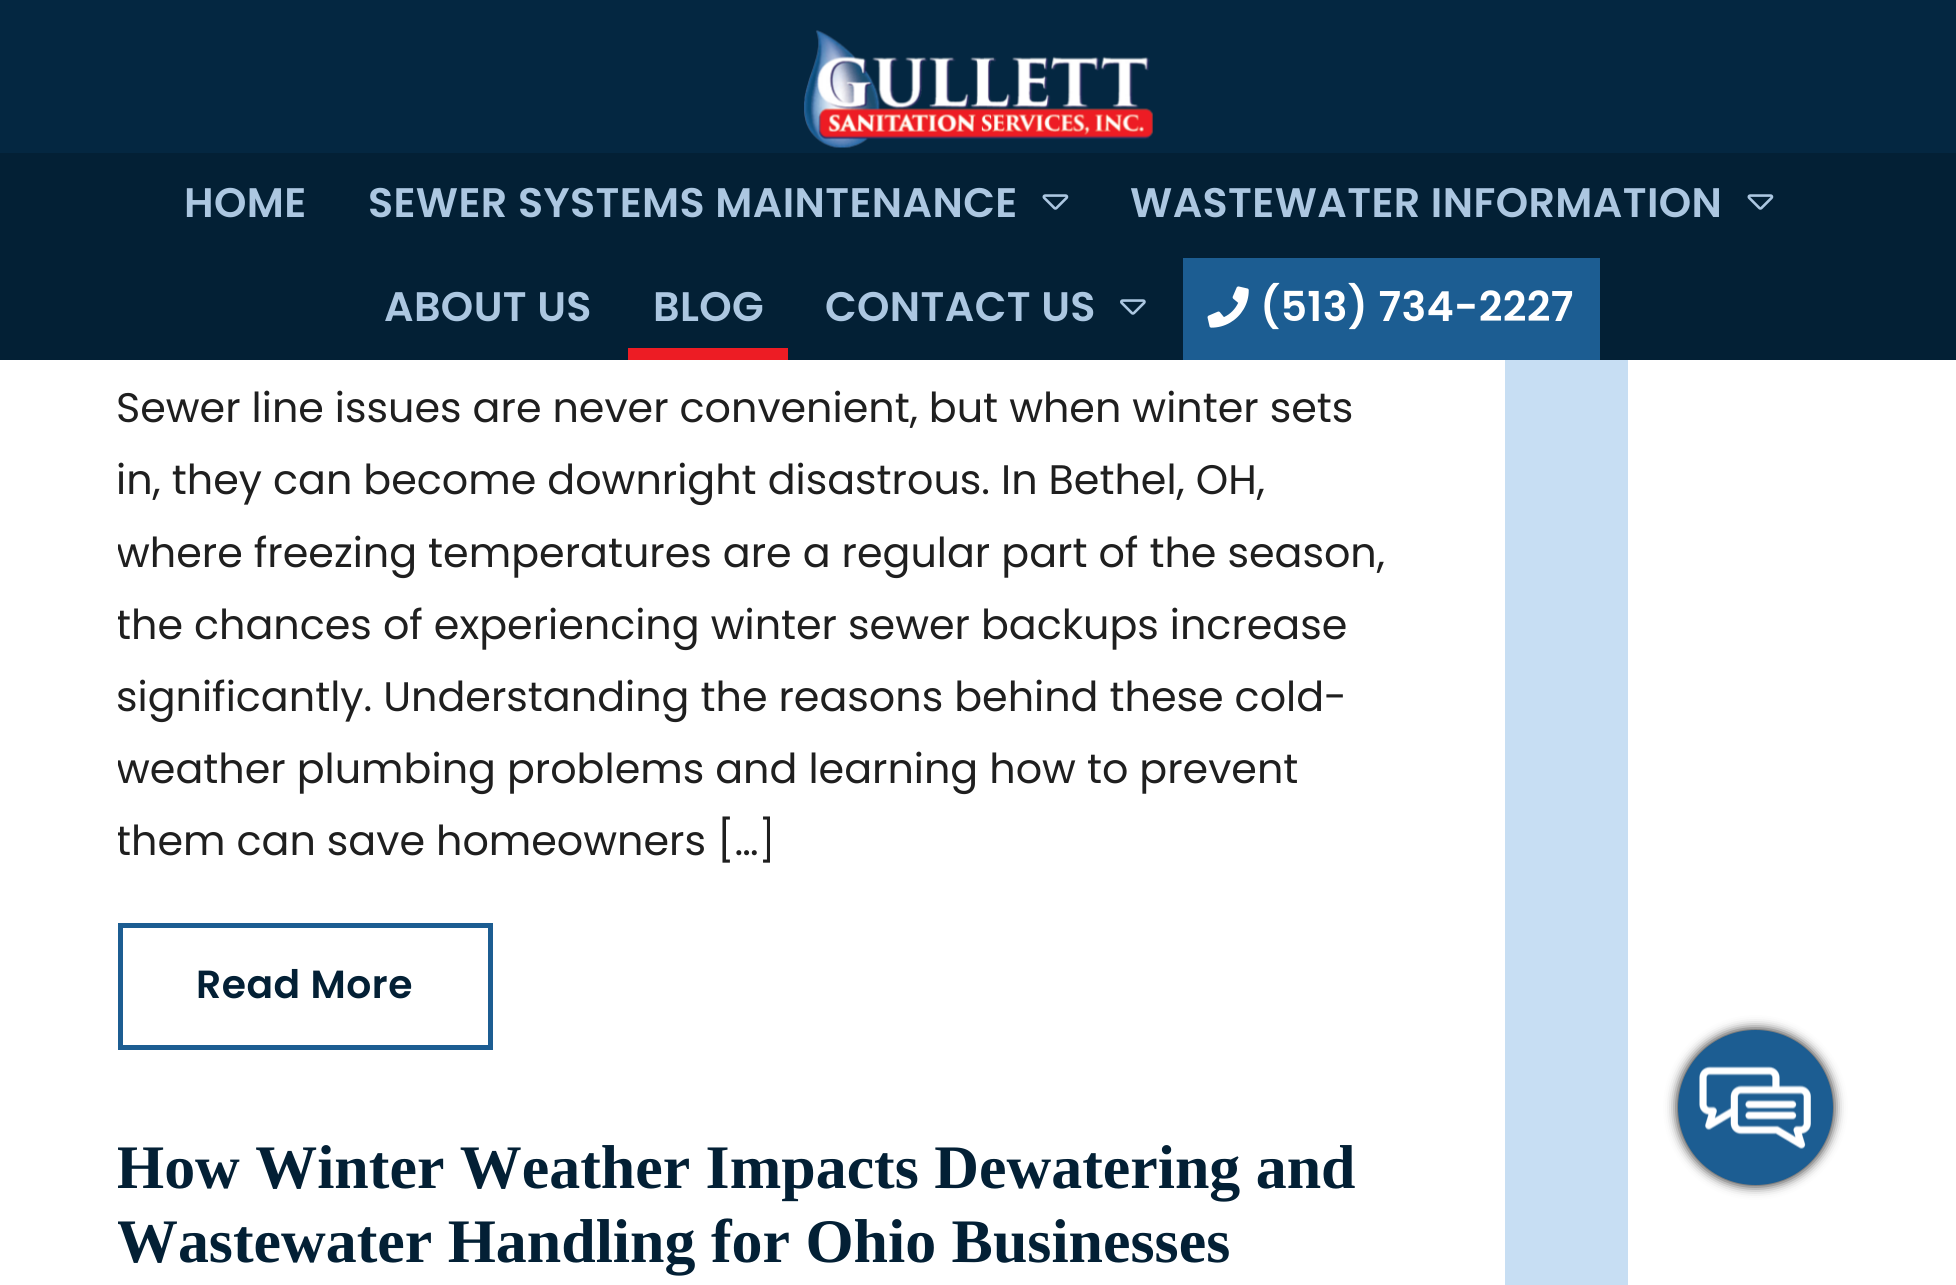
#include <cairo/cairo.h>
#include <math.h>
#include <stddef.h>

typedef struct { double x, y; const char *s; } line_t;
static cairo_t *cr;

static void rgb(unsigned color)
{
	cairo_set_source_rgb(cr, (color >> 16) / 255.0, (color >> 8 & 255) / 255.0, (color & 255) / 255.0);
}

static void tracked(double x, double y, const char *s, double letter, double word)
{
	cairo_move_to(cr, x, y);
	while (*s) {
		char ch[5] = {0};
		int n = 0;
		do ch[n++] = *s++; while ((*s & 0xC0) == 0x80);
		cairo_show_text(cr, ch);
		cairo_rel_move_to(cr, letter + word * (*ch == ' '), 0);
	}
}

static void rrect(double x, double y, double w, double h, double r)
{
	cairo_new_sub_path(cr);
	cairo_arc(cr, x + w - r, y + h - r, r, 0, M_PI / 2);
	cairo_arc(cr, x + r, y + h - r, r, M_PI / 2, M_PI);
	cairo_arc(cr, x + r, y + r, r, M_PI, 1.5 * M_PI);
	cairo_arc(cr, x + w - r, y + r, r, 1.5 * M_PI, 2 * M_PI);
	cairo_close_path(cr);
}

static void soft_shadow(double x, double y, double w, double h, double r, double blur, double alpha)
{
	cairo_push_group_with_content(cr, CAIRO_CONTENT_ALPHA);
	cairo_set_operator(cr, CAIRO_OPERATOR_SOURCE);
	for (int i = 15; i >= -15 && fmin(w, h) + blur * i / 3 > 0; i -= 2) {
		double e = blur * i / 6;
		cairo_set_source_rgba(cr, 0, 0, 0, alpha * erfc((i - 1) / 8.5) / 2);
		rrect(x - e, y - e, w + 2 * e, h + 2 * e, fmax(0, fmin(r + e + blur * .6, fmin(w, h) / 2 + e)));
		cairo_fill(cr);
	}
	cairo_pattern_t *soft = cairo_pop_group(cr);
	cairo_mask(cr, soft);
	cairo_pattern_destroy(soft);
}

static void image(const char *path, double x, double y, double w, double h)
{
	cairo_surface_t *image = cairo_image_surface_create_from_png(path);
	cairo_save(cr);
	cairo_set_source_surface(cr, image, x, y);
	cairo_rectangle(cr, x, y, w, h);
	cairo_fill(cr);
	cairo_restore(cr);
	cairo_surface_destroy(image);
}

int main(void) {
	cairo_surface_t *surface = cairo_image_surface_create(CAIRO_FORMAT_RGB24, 1956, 1285);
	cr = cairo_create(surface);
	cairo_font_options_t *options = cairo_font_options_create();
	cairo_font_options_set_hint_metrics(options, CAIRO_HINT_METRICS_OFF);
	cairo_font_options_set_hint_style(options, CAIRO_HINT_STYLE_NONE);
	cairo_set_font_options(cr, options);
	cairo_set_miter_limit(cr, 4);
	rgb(0xffffff);
	cairo_paint(cr);
	rgb(0x042741);
	cairo_rectangle(cr, 0, 0, 1956, 153);
	cairo_fill(cr);
	image("img/1.png", 804, 30, 349, 118);
	rgb(0x032035);
	cairo_rectangle(cr, 0, 153, 1956, 207);
	cairo_fill(cr);
	image("img/2.png", 1042, 194, 27, 16);
	image("img/2.png", 1747, 194, 27, 16);
	rgb(0xed1c24);
	cairo_rectangle(cr, 628, 348, 160, 12);
	cairo_fill(cr);
	image("img/3.png", 1120, 299, 26, 16);
	rgb(0x1c5d92);
	cairo_rectangle(cr, 1183, 258, 417, 102);
	cairo_fill(cr);
	image("img/4.png", 1207, 286, 42, 42);
	cairo_rectangle(cr, 120.5, 925.5, 370, 122);
	cairo_set_line_width(cr, 5);
	cairo_stroke(cr);
	rgb(0xc7def3);
	cairo_rectangle(cr, 1505, 360, 123, 925);
	cairo_fill(cr);
	rgb(0x000000);
	soft_shadow(1678, 1030, 155, 155, 77.5, 6, 1);
	rgb(0x1c5d92);
	cairo_arc(cr, 1755.5, 1107.5, 77.5, 0, 2 * M_PI);
	cairo_fill(cr);
	image("img/5.png", 1699, 1066, 112, 83);
	cairo_select_font_face(cr, "Poppins SemiBold", CAIRO_FONT_SLANT_NORMAL, CAIRO_FONT_WEIGHT_NORMAL);
	cairo_set_font_size(cr, 41.25);
	rgb(0xacc7e1);
	{
		static const line_t items[] = {
			{184, 217, "HOME"},
			{368, 217, "SEWER SYSTEMS MAINTENANCE"},
			{1130, 217, "WASTEWATER INFORMATION"},
			{384, 321, "ABOUT US"},
			{653, 321, "BLOG"},
			{825, 321, "CONTACT US"},
		};
		for (size_t i = 0; i < sizeof items / sizeof *items; i++) {
			tracked(items[i].x, items[i].y, items[i].s, 0.4, 0);
		}
	}
	rgb(0xffffff);
	tracked(1260, 321, "(513) 734-2227", 0.4, 0);
	cairo_select_font_face(cr, "Poppins", CAIRO_FONT_SLANT_NORMAL, CAIRO_FONT_WEIGHT_NORMAL);
	rgb(0x1f1f1f);
	cairo_move_to(cr, 116, 422);
	cairo_show_text(cr, "Sewer line issues are never convenient, but when winter sets");
	cairo_move_to(cr, 116, 494);
	cairo_show_text(cr, "in, they can become downright disastrous. In Bethel, OH,");
	cairo_save(cr);
	cairo_rectangle(cr, 118, 0, 1275, 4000);
	cairo_clip(cr);
	cairo_move_to(cr, 116, 567);
	cairo_show_text(cr, "where freezing temperatures are a regular part of the season,");
	cairo_move_to(cr, 116, 639);
	cairo_show_text(cr, "the chances of experiencing winter sewer backups increase");
	cairo_restore(cr);
	cairo_move_to(cr, 116, 711);
	cairo_show_text(cr, "significantly. Understanding the reasons behind these cold-");
	cairo_save(cr);
	cairo_rectangle(cr, 118, 0, 1275, 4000);
	cairo_clip(cr);
	cairo_move_to(cr, 116, 783);
	cairo_show_text(cr, "weather plumbing problems and learning how to prevent");
	cairo_move_to(cr, 116, 855);
	cairo_show_text(cr, "them can save homeowners […]");
	cairo_restore(cr);
	cairo_select_font_face(cr, "Poppins SemiBold", CAIRO_FONT_SLANT_NORMAL, CAIRO_FONT_WEIGHT_NORMAL);
	cairo_set_font_size(cr, 39.25);
	rgb(0x032035);
	tracked(196, 998, "Read More", 0.5, 0);
	cairo_save(cr);
	cairo_rectangle(cr, 118, 0, 1275, 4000);
	cairo_clip(cr);
	cairo_select_font_face(cr, "Liberation Serif", CAIRO_FONT_SLANT_NORMAL, CAIRO_FONT_WEIGHT_BOLD);
	cairo_set_font_size(cr, 61.9);
	cairo_move_to(cr, 116, 1188);
	cairo_show_text(cr, "How Winter Weather Impacts Dewatering and");
	cairo_move_to(cr, 116, 1262);
	cairo_show_text(cr, "Wastewater Handling for Ohio Businesses");
	cairo_restore(cr);
	cairo_surface_write_to_png(surface, "page.png");
	cairo_font_options_destroy(options);
	cairo_destroy(cr);
	cairo_surface_destroy(surface);
	return 0;
}
